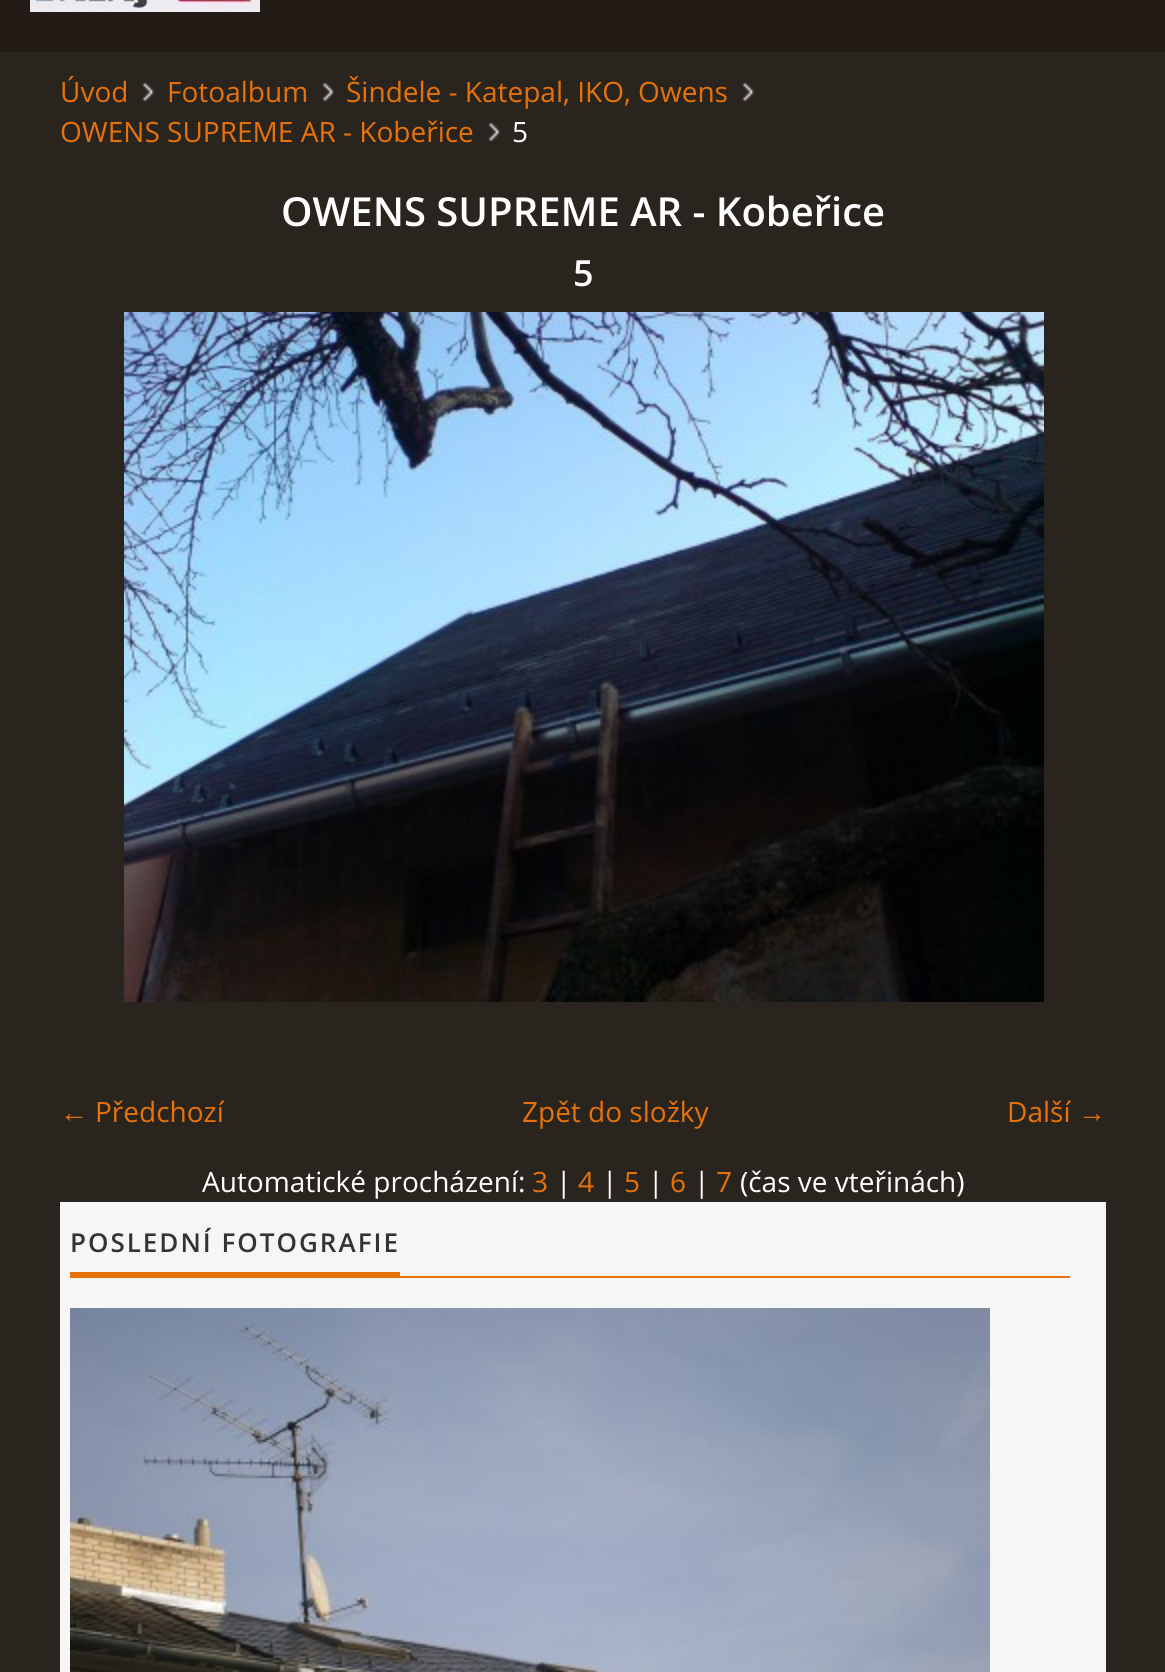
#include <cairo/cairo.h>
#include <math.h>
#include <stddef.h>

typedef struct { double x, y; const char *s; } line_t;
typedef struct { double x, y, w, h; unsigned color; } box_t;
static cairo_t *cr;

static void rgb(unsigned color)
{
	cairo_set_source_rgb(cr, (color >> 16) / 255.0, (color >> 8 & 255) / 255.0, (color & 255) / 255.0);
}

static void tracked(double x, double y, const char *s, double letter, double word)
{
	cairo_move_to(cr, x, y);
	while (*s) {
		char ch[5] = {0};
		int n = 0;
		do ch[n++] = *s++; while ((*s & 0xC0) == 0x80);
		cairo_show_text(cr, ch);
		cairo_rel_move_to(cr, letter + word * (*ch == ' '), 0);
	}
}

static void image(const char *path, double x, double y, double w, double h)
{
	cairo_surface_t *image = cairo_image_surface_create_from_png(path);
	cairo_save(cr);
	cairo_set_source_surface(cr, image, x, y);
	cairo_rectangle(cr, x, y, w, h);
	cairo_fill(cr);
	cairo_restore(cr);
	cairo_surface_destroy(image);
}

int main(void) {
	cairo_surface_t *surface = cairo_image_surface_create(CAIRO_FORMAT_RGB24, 1165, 1672);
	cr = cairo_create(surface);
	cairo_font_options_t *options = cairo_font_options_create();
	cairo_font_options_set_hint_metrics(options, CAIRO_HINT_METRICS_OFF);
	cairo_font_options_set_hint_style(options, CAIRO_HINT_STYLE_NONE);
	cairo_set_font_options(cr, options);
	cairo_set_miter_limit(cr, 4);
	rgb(0x29241e);
	cairo_paint(cr);
	rgb(0x221b16);
	cairo_rectangle(cr, 0, 0, 1165, 52);
	cairo_fill(cr);
	image("img/1.png", 30, 0, 230, 12);
	image("img/2.png", 142, 82, 12, 20);
	image("img/2.png", 322, 82, 12, 20);
	image("img/2.png", 742, 82, 12, 20);
	image("img/2.png", 488, 122, 12, 20);
	image("img/3.png", 124, 312, 920, 690);
	{
		static const box_t items[] = {
			{60, 1202, 1046, 470, 0xf6f6f6},
			{70, 1272, 330, 4, 0xe67209},
			{70, 1276, 1000, 2, 0xe67209},
		};
		for (size_t i = 0; i < sizeof items / sizeof *items; i++) {
			rgb(items[i].color);
			cairo_rectangle(cr, items[i].x, items[i].y, items[i].w, items[i].h);
			cairo_fill(cr);
		}
	}
	image("img/4.png", 70, 1308, 920, 364);
	cairo_select_font_face(cr, "Open Sans", CAIRO_FONT_SLANT_NORMAL, CAIRO_FONT_WEIGHT_NORMAL);
	cairo_set_font_size(cr, 28);
	{
		static const line_t items[] = {
			{60, 102, "Úvod"},
			{167, 102, "Fotoalbum"},
			{346, 102, "Šindele - Katepal, IKO, Owens"},
			{60, 142, "OWENS SUPREME AR - Kobeřice"},
		};
		for (size_t i = 0; i < sizeof items / sizeof *items; i++) {
			cairo_move_to(cr, items[i].x, items[i].y);
			cairo_show_text(cr, items[i].s);
		}
	}
	rgb(0xffffff);
	cairo_move_to(cr, 512, 142);
	cairo_show_text(cr, "5");
	cairo_select_font_face(cr, "Open Sans SemiBold", CAIRO_FONT_SLANT_NORMAL, CAIRO_FONT_WEIGHT_NORMAL);
	cairo_set_font_size(cr, 40);
	cairo_move_to(cr, 281, 226);
	cairo_show_text(cr, "OWENS SUPREME AR - Kobeřice");
	cairo_set_font_size(cr, 36);
	cairo_move_to(cr, 573, 286);
	cairo_show_text(cr, "5");
	cairo_select_font_face(cr, "Liberation Serif", CAIRO_FONT_SLANT_NORMAL, CAIRO_FONT_WEIGHT_NORMAL);
	cairo_set_font_size(cr, 28);
	rgb(0xe67209);
	cairo_move_to(cr, 60, 1122);
	cairo_show_text(cr, "←");
	cairo_select_font_face(cr, "Open Sans", CAIRO_FONT_SLANT_NORMAL, CAIRO_FONT_WEIGHT_NORMAL);
	{
		static const line_t items[] = {
			{95, 1122, "Předchozí"},
			{522, 1122, "Zpět do složky"},
			{1007, 1122, "Další"},
		};
		for (size_t i = 0; i < sizeof items / sizeof *items; i++) {
			cairo_move_to(cr, items[i].x, items[i].y);
			cairo_show_text(cr, items[i].s);
		}
	}
	cairo_select_font_face(cr, "Liberation Serif", CAIRO_FONT_SLANT_NORMAL, CAIRO_FONT_WEIGHT_NORMAL);
	cairo_move_to(cr, 1078, 1122);
	cairo_show_text(cr, "→");
	cairo_select_font_face(cr, "Open Sans", CAIRO_FONT_SLANT_NORMAL, CAIRO_FONT_WEIGHT_NORMAL);
	rgb(0xffffff);
	cairo_move_to(cr, 202, 1192);
	cairo_show_text(cr, "Automatické procházení:");
	rgb(0xe67209);
	cairo_move_to(cr, 532, 1192);
	cairo_show_text(cr, "3");
	rgb(0xffffff);
	cairo_move_to(cr, 556, 1192);
	cairo_show_text(cr, "|");
	rgb(0xe67209);
	cairo_move_to(cr, 578, 1192);
	cairo_show_text(cr, "4");
	rgb(0xffffff);
	cairo_move_to(cr, 602, 1192);
	cairo_show_text(cr, "|");
	rgb(0xe67209);
	cairo_move_to(cr, 624, 1192);
	cairo_show_text(cr, "5");
	rgb(0xffffff);
	cairo_move_to(cr, 648, 1192);
	cairo_show_text(cr, "|");
	rgb(0xe67209);
	cairo_move_to(cr, 670, 1192);
	cairo_show_text(cr, "6");
	rgb(0xffffff);
	cairo_move_to(cr, 694, 1192);
	cairo_show_text(cr, "|");
	rgb(0xe67209);
	cairo_move_to(cr, 716, 1192);
	cairo_show_text(cr, "7");
	rgb(0xffffff);
	cairo_move_to(cr, 740, 1192);
	cairo_show_text(cr, "(čas ve vteřinách)");
	cairo_select_font_face(cr, "Open Sans SemiBold", CAIRO_FONT_SLANT_NORMAL, CAIRO_FONT_WEIGHT_NORMAL);
	cairo_set_font_size(cr, 26);
	rgb(0x333333);
	tracked(70, 1252, "POSLEDNÍ FOTOGRAFIE", 2, 0);
	cairo_surface_write_to_png(surface, "page.png");
	cairo_font_options_destroy(options);
	cairo_destroy(cr);
	cairo_surface_destroy(surface);
	return 0;
}
